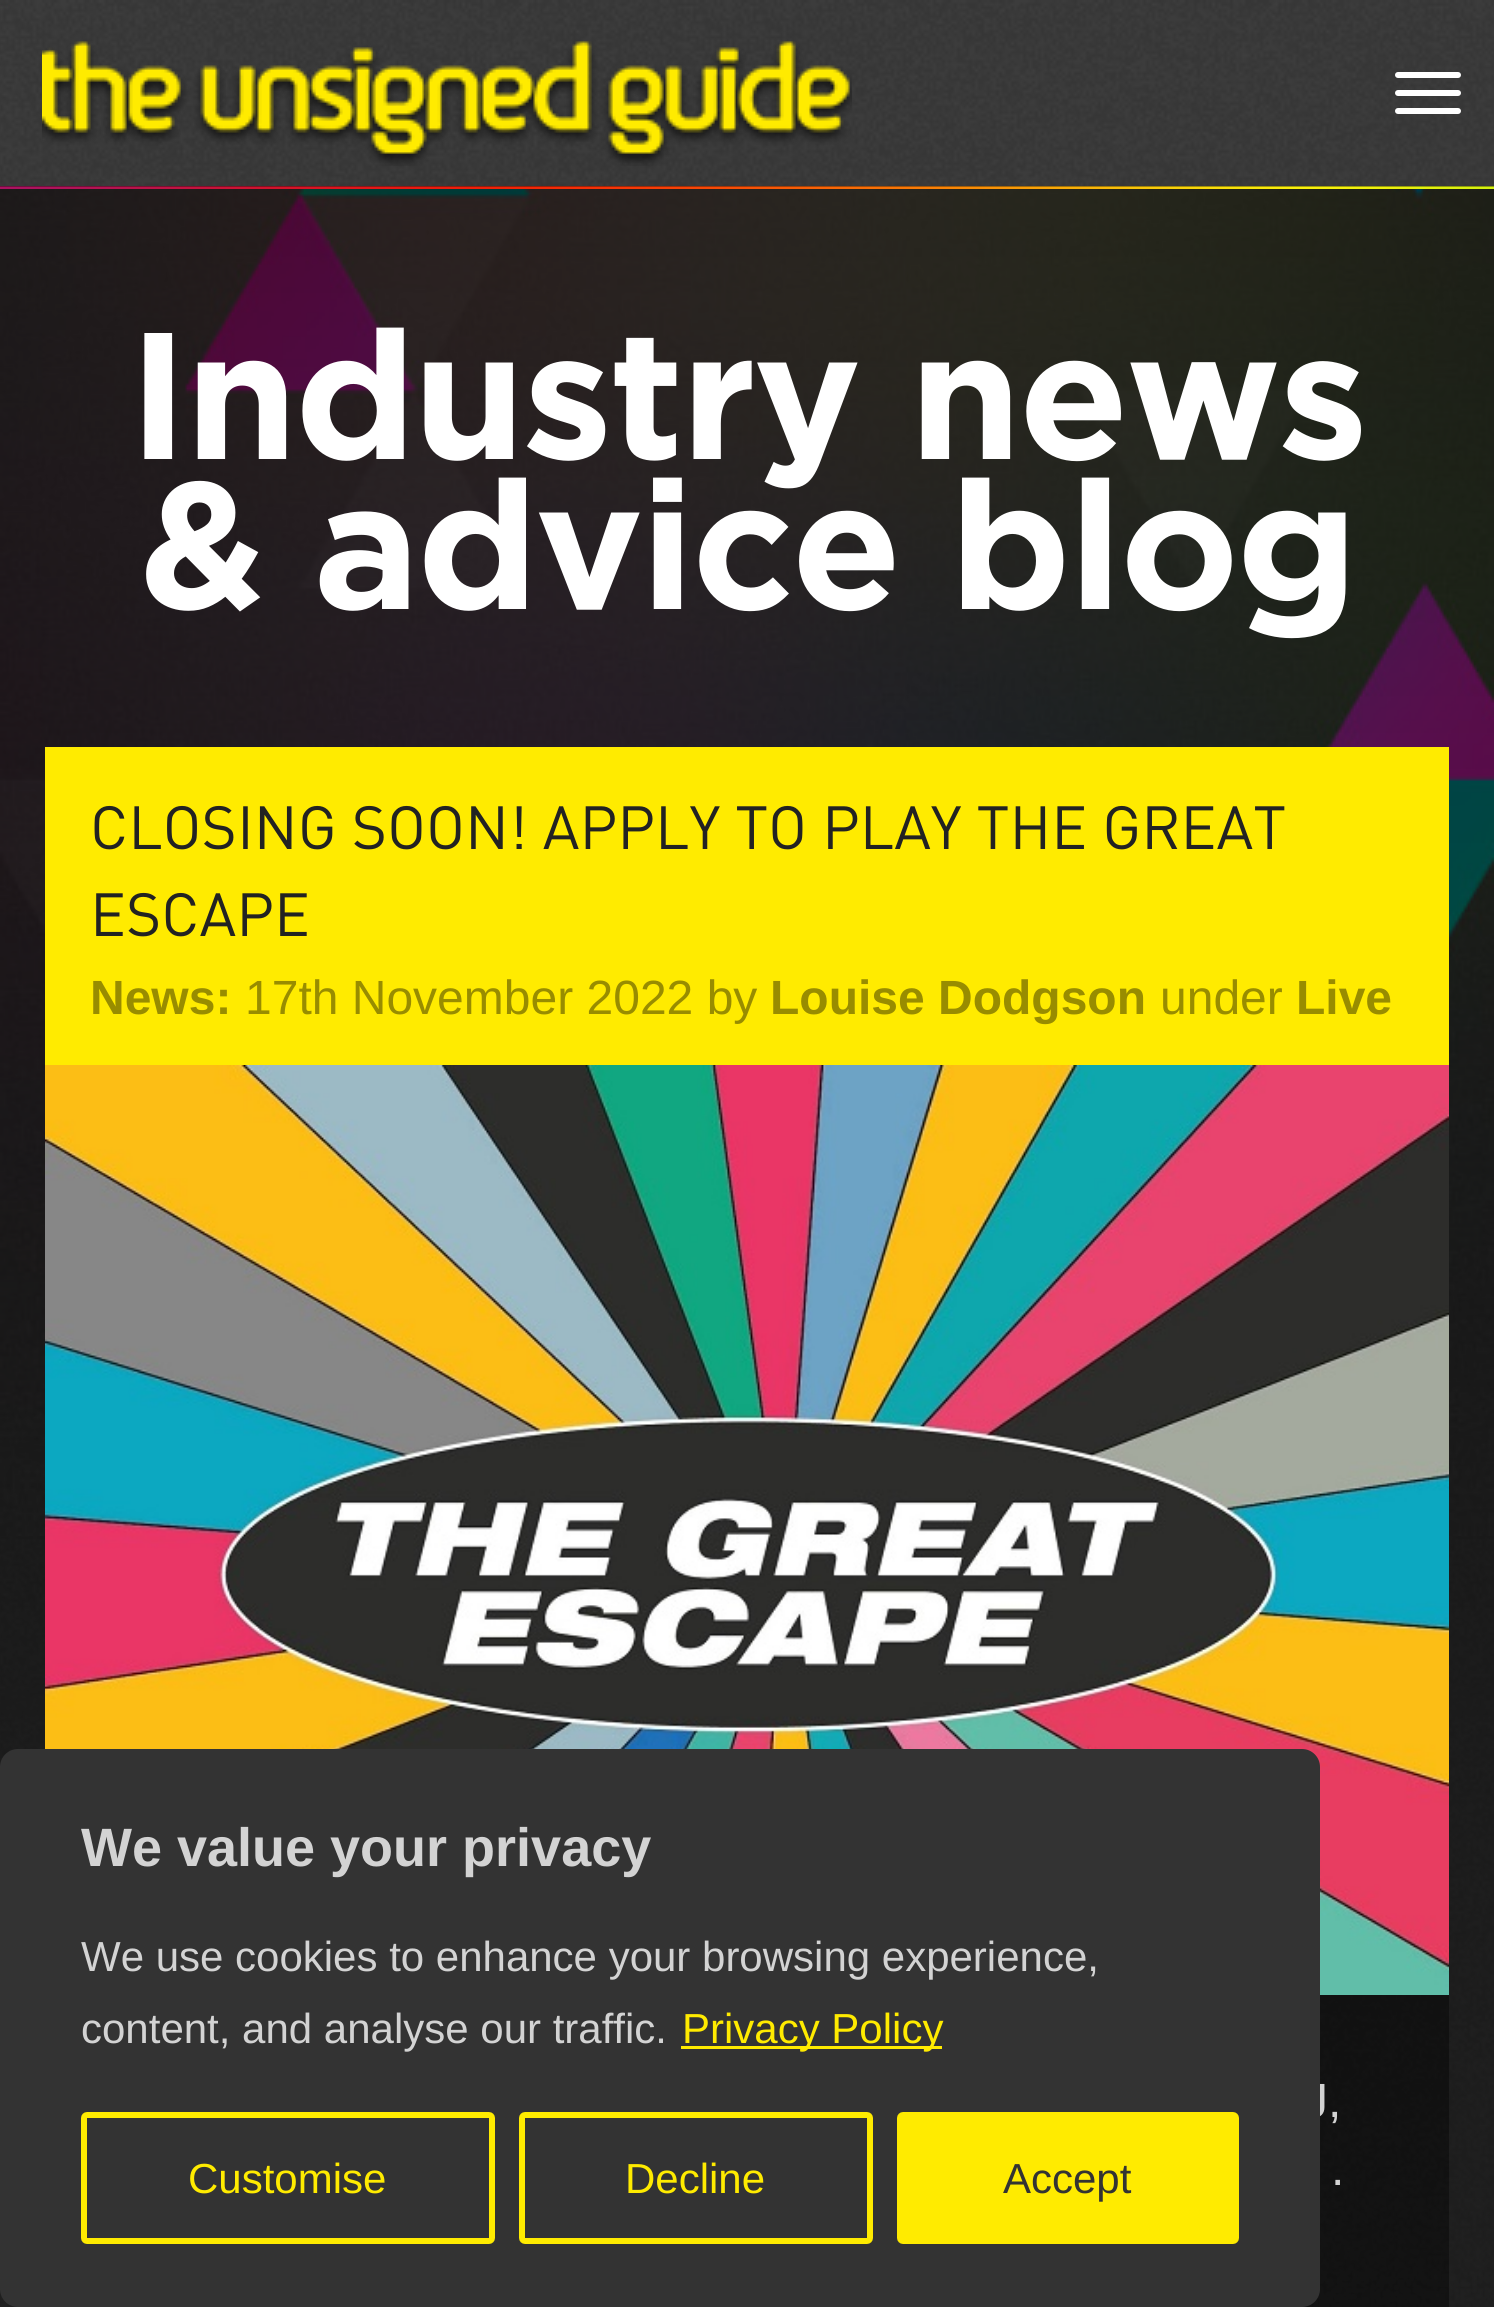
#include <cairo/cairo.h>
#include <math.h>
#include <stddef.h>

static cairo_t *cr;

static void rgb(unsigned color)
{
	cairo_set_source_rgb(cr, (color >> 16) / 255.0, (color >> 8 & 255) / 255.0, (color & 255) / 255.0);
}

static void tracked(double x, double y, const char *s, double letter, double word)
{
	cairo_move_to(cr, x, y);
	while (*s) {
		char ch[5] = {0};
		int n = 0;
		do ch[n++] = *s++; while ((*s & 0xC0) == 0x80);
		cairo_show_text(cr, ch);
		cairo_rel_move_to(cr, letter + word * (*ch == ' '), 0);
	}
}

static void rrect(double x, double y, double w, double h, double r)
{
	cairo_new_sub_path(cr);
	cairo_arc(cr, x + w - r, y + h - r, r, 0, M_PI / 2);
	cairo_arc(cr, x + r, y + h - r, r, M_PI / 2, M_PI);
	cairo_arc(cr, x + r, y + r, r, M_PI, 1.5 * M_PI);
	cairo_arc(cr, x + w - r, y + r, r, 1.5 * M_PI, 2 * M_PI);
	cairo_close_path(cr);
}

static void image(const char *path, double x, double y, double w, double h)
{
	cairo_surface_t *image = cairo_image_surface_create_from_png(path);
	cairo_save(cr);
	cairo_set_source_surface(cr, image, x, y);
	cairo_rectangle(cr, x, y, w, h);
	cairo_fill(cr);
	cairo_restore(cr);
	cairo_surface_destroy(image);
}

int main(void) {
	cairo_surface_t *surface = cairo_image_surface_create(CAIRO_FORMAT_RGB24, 1494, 2307);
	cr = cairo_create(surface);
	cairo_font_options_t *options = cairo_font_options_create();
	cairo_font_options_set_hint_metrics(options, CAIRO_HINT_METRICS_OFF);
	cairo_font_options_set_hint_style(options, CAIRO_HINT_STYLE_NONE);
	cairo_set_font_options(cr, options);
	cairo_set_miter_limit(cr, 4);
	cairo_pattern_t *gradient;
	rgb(0xffffff);
	cairo_paint(cr);
	image("img/1.png", 0, 1536, 1494, 771);
	image("img/5.png", 0, 186, 1494, 1350);
	gradient = cairo_pattern_create_linear(747, 0, 747, 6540);
	cairo_pattern_add_color_stop_rgba(gradient, 0, 0, 0, 0, 0.7);
	cairo_pattern_add_color_stop_rgba(gradient, 1, 0, 0, 0, 0);
	cairo_set_source(cr, gradient);
	cairo_pattern_destroy(gradient);
	cairo_rectangle(cr, 0, 186, 1494, 2121);
	cairo_fill(cr);
	cairo_set_source_rgba(cr, 0, 0, 0, 0.6);
	cairo_rectangle(cr, 0, 186, 1494, 1);
	cairo_fill(cr);
	image("img/2.png", 0, 186, 1494, 3);
	image("img/3.png", 0, 0, 1494, 186);
	image("img/4.png", 42, 41, 810, 125);
	rgb(0xffffff);
	rrect(1395, 72, 66, 6, 3);
	cairo_fill(cr);
	rrect(1395, 90, 66, 6, 3);
	cairo_fill(cr);
	rrect(1395, 108, 66, 6, 3);
	cairo_fill(cr);
	cairo_set_source_rgba(cr, 0, 0, 0, 0.4);
	cairo_rectangle(cr, 1302, 1995, 147, 312);
	cairo_fill(cr);
	rgb(0xffeb00);
	cairo_rectangle(cr, 45, 747, 1404, 318);
	cairo_fill(cr);
	image("img/6.png", 45, 1065, 1404, 930);
	cairo_select_font_face(cr, "Gotham", CAIRO_FONT_SLANT_NORMAL, CAIRO_FONT_WEIGHT_BOLD);
	cairo_set_font_size(cr, 180);
	rgb(0xffffff);
	tracked(128, 459, "Industry news", -3, 0);
	tracked(140, 609, "& advice blog", -3, 0);
	cairo_select_font_face(cr, "DIN", CAIRO_FONT_SLANT_NORMAL, CAIRO_FONT_WEIGHT_NORMAL);
	cairo_set_font_size(cr, 60);
	rgb(0x222222);
	cairo_move_to(cr, 90, 849);
	cairo_show_text(cr, "CLOSING SOON! APPLY TO PLAY THE GREAT");
	cairo_move_to(cr, 90, 936);
	cairo_show_text(cr, "ESCAPE");
	cairo_select_font_face(cr, "Liberation Sans", CAIRO_FONT_SLANT_NORMAL, CAIRO_FONT_WEIGHT_BOLD);
	cairo_set_font_size(cr, 48);
	rgb(0x988c00);
	cairo_move_to(cr, 90, 1014);
	cairo_show_text(cr, "News:");
	cairo_select_font_face(cr, "Liberation Sans", CAIRO_FONT_SLANT_NORMAL, CAIRO_FONT_WEIGHT_NORMAL);
	cairo_move_to(cr, 245, 1014);
	cairo_show_text(cr, "17th November 2022 by");
	cairo_select_font_face(cr, "Liberation Sans", CAIRO_FONT_SLANT_NORMAL, CAIRO_FONT_WEIGHT_BOLD);
	cairo_move_to(cr, 770, 1014);
	cairo_show_text(cr, "Louise Dodgson");
	cairo_select_font_face(cr, "Liberation Sans", CAIRO_FONT_SLANT_NORMAL, CAIRO_FONT_WEIGHT_NORMAL);
	cairo_move_to(cr, 1160, 1014);
	cairo_show_text(cr, "under");
	cairo_select_font_face(cr, "Liberation Sans", CAIRO_FONT_SLANT_NORMAL, CAIRO_FONT_WEIGHT_BOLD);
	cairo_move_to(cr, 1296, 1014);
	cairo_show_text(cr, "Live");
	cairo_select_font_face(cr, "Liberation Sans", CAIRO_FONT_SLANT_NORMAL, CAIRO_FONT_WEIGHT_NORMAL);
	rgb(0xd3d3d3);
	cairo_move_to(cr, 1304, 2117);
	cairo_show_text(cr, "J,");
	cairo_move_to(cr, 1331, 2185);
	cairo_show_text(cr, ".");
	rgb(0x333333);
	rrect(1.5, 1750.5, 1317, 555, 16.5);
	cairo_fill_preserve(cr);
	cairo_set_line_width(cr, 3);
	cairo_stroke(cr);
	cairo_select_font_face(cr, "Liberation Sans", CAIRO_FONT_SLANT_NORMAL, CAIRO_FONT_WEIGHT_BOLD);
	cairo_set_font_size(cr, 54);
	rgb(0xd3d3d3);
	cairo_move_to(cr, 81, 1866);
	cairo_show_text(cr, "We value your privacy");
	cairo_select_font_face(cr, "Liberation Sans", CAIRO_FONT_SLANT_NORMAL, CAIRO_FONT_WEIGHT_NORMAL);
	cairo_set_font_size(cr, 42);
	cairo_move_to(cr, 81, 1971);
	cairo_show_text(cr, "We use cookies to enhance your browsing experience,");
	cairo_move_to(cr, 81, 2043);
	cairo_show_text(cr, "content, and analyse our traffic.");
	rgb(0xffeb00);
	cairo_rectangle(cr, 681, 2046, 261, 3);
	cairo_fill(cr);
	cairo_move_to(cr, 682, 2043);
	cairo_show_text(cr, "Privacy Policy");
	rrect(84, 2115, 408, 126, 3);
	cairo_set_line_width(cr, 6);
	cairo_stroke(cr);
	cairo_move_to(cr, 188, 2193);
	cairo_show_text(cr, "Customise");
	rrect(522, 2115, 348, 126, 3);
	cairo_stroke(cr);
	cairo_move_to(cr, 625, 2193);
	cairo_show_text(cr, "Decline");
	rrect(900, 2115, 336, 126, 3);
	cairo_fill_preserve(cr);
	cairo_stroke(cr);
	rgb(0x333333);
	cairo_move_to(cr, 1003, 2193);
	cairo_show_text(cr, "Accept");
	cairo_surface_write_to_png(surface, "page.png");
	cairo_font_options_destroy(options);
	cairo_destroy(cr);
	cairo_surface_destroy(surface);
	return 0;
}
